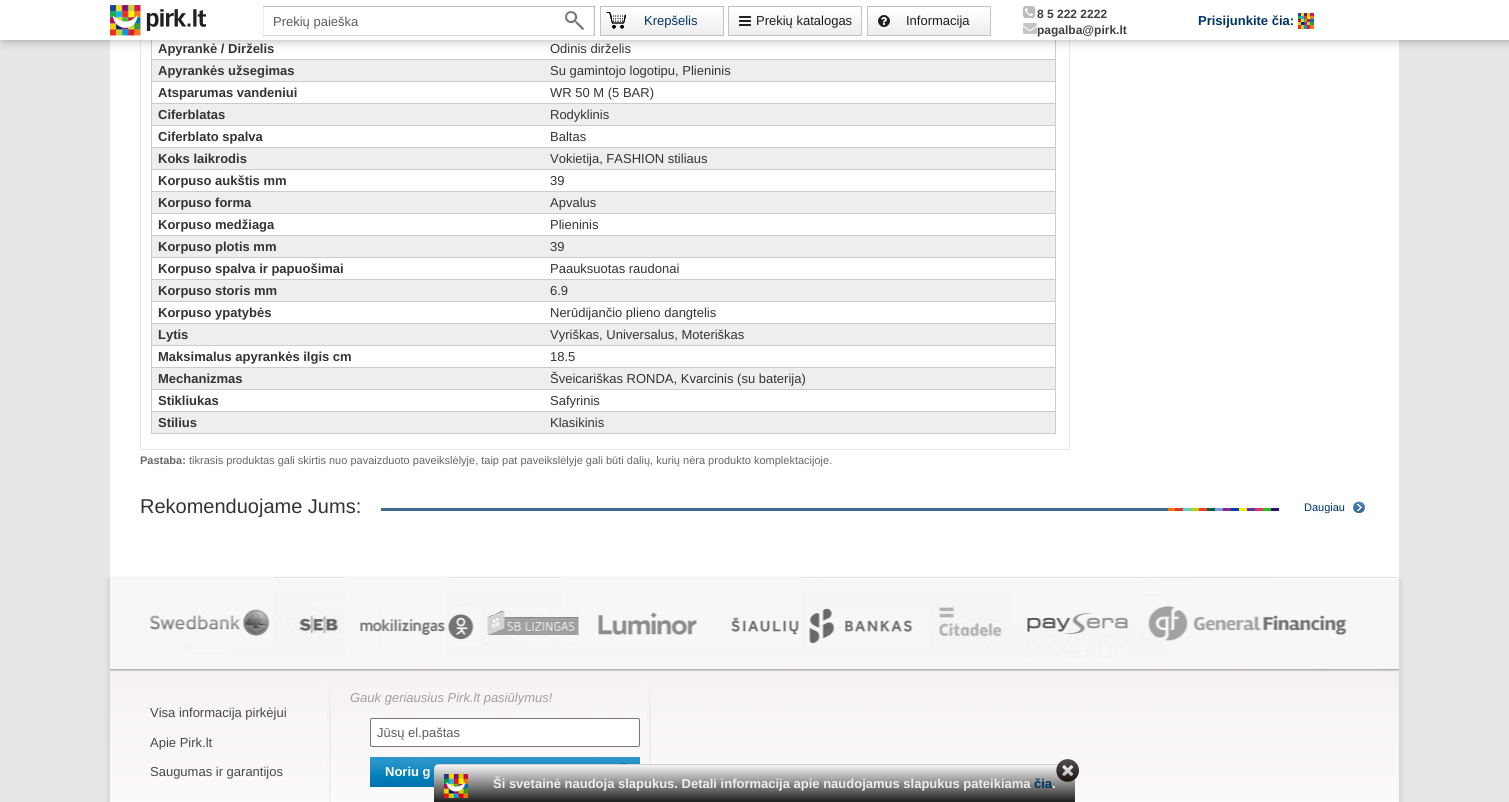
#include <cairo/cairo.h>
#include <math.h>
#include <stddef.h>

typedef struct { double x, y; const char *s; } line_t;
typedef struct { double x, y, w, h; unsigned color; } box_t;
static cairo_t *cr;

static void rgb(unsigned color)
{
	cairo_set_source_rgb(cr, (color >> 16) / 255.0, (color >> 8 & 255) / 255.0, (color & 255) / 255.0);
}

static void rrect(double x, double y, double w, double h, double r)
{
	cairo_new_sub_path(cr);
	cairo_arc(cr, x + w - r, y + h - r, r, 0, M_PI / 2);
	cairo_arc(cr, x + r, y + h - r, r, M_PI / 2, M_PI);
	cairo_arc(cr, x + r, y + r, r, M_PI, 1.5 * M_PI);
	cairo_arc(cr, x + w - r, y + r, r, 1.5 * M_PI, 2 * M_PI);
	cairo_close_path(cr);
}

static void soft_shadow(double x, double y, double w, double h, double r, double blur, double alpha)
{
	cairo_push_group_with_content(cr, CAIRO_CONTENT_ALPHA);
	cairo_set_operator(cr, CAIRO_OPERATOR_SOURCE);
	for (int i = 15; i >= -15 && fmin(w, h) + blur * i / 3 > 0; i -= 2) {
		double e = blur * i / 6;
		cairo_set_source_rgba(cr, 0, 0, 0, alpha * erfc((i - 1) / 8.5) / 2);
		rrect(x - e, y - e, w + 2 * e, h + 2 * e, fmax(0, fmin(r + e + blur * .6, fmin(w, h) / 2 + e)));
		cairo_fill(cr);
	}
	cairo_pattern_t *soft = cairo_pop_group(cr);
	cairo_mask(cr, soft);
	cairo_pattern_destroy(soft);
}

static void image(const char *path, double x, double y, double w, double h)
{
	cairo_surface_t *image = cairo_image_surface_create_from_png(path);
	cairo_save(cr);
	cairo_set_source_surface(cr, image, x, y);
	cairo_rectangle(cr, x, y, w, h);
	cairo_fill(cr);
	cairo_restore(cr);
	cairo_surface_destroy(image);
}

int main(void) {
	cairo_surface_t *surface = cairo_image_surface_create(CAIRO_FORMAT_RGB24, 1509, 802);
	cr = cairo_create(surface);
	cairo_font_options_t *options = cairo_font_options_create();
	cairo_font_options_set_hint_metrics(options, CAIRO_HINT_METRICS_OFF);
	cairo_font_options_set_hint_style(options, CAIRO_HINT_STYLE_NONE);
	cairo_set_font_options(cr, options);
	cairo_set_miter_limit(cr, 4);
	rgb(0xe7e7e7);
	cairo_paint(cr);
	{
		static const box_t items[] = {
			{110, 40, 1289, 537, 0xffffff},
			{1069, 40, 1, 410, 0xe9e7eb},
			{140, 449, 930, 1, 0xe9e7eb},
			{140, 40, 1, 410, 0xe9e7eb},
			{1055, 40, 1, 394, 0xcccccc},
			{151, 433, 905, 1, 0xcccccc},
			{151, 40, 1, 394, 0xcccccc},
		};
		for (size_t i = 0; i < sizeof items / sizeof *items; i++) {
			rgb(items[i].color);
			cairo_rectangle(cr, items[i].x, items[i].y, items[i].w, items[i].h);
			cairo_fill(cr);
		}
	}
	rgb(0x000000);
	soft_shadow(3, 1, 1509, 40, 0, 5, 0.29);
	rgb(0xffffff);
	cairo_rectangle(cr, 0, 0, 1509, 40);
	cairo_fill(cr);
	image("img/1.png", 110, 5, 96, 31);
	image("img/2.png", 263, 6, 332, 30);
	image("img/3.png", 600, 6, 123, 30);
	rgb(0xc3c3c3);
	cairo_rectangle(cr, 723, 6, 1, 30);
	cairo_fill(cr);
	image("img/4.png", 728, 6, 133, 30);
	cairo_rectangle(cr, 861, 6, 1, 30);
	cairo_fill(cr);
	image("img/5.png", 867, 6, 123, 30);
	cairo_rectangle(cr, 990, 6, 1, 30);
	cairo_fill(cr);
	image("img/6.png", 1023, 6, 12, 12);
	image("img/7.png", 1023, 23, 14, 11);
	image("img/8.png", 1298, 13, 16, 16);
	{
		static const box_t items[] = {
			{151, 59, 905, 1, 0xcccccc},
			{152, 60, 903, 21, 0xeeeeee},
			{151, 81, 905, 1, 0xcccccc},
			{151, 103, 905, 1, 0xcccccc},
			{152, 104, 903, 21, 0xeeeeee},
			{151, 125, 905, 1, 0xcccccc},
			{151, 147, 905, 1, 0xcccccc},
			{152, 148, 903, 21, 0xeeeeee},
			{151, 169, 905, 1, 0xcccccc},
			{151, 191, 905, 1, 0xcccccc},
			{152, 192, 903, 21, 0xeeeeee},
			{151, 213, 905, 1, 0xcccccc},
			{151, 235, 905, 1, 0xcccccc},
			{152, 236, 903, 21, 0xeeeeee},
			{151, 257, 905, 1, 0xcccccc},
			{151, 279, 905, 1, 0xcccccc},
			{152, 280, 903, 21, 0xeeeeee},
			{151, 301, 905, 1, 0xcccccc},
			{151, 323, 905, 1, 0xcccccc},
			{152, 324, 903, 21, 0xeeeeee},
			{151, 345, 905, 1, 0xcccccc},
			{151, 367, 905, 1, 0xcccccc},
			{152, 368, 903, 21, 0xeeeeee},
			{151, 389, 905, 1, 0xcccccc},
			{151, 411, 905, 1, 0xcccccc},
			{152, 412, 903, 21, 0xeeeeee},
		};
		for (size_t i = 0; i < sizeof items / sizeof *items; i++) {
			rgb(items[i].color);
			cairo_rectangle(cr, items[i].x, items[i].y, items[i].w, items[i].h);
			cairo_fill(cr);
		}
	}
	image("img/9.png", 381, 508, 898, 3);
	image("img/10.png", 1353, 501, 12, 12);
	rgb(0x9c9c9c);
	soft_shadow(108, 579, 1293, 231, 0, 2.5, 0.29);
	image("img/11.png", 110, 577, 1289, 225);
	rgb(0xffffff);
	rrect(370.5, 718.5, 269, 28, 1.5);
	cairo_fill_preserve(cr);
	rgb(0x767676);
	cairo_set_line_width(cr, 1);
	cairo_stroke(cr);
	image("img/12.png", 370, 757, 270, 30);
	image("img/13.png", 434, 764, 641, 38);
	image("img/14.png", 1056, 759, 23, 23);
	image("img/15.png", 444, 774, 24, 24);
	cairo_select_font_face(cr, "Liberation Sans", CAIRO_FONT_SLANT_NORMAL, CAIRO_FONT_WEIGHT_NORMAL);
	cairo_set_font_size(cr, 13);
	rgb(0x5b5b5b);
	cairo_move_to(cr, 273, 26);
	cairo_show_text(cr, "Prekių paieška");
	rgb(0x003366);
	cairo_move_to(cr, 644, 25);
	cairo_show_text(cr, "Krepšelis");
	rgb(0x1d1d1d);
	cairo_move_to(cr, 756, 25);
	cairo_show_text(cr, "Prekių katalogas");
	cairo_move_to(cr, 906, 25);
	cairo_show_text(cr, "Informacija");
	cairo_select_font_face(cr, "Liberation Sans", CAIRO_FONT_SLANT_NORMAL, CAIRO_FONT_WEIGHT_BOLD);
	cairo_set_font_size(cr, 12);
	rgb(0x3f3f3f);
	cairo_move_to(cr, 1037, 18);
	cairo_show_text(cr, "8 5 222 2222");
	cairo_move_to(cr, 1037, 34);
	cairo_show_text(cr, "pagalba@pirk.lt");
	cairo_set_font_size(cr, 13);
	rgb(0x003366);
	cairo_move_to(cr, 1198, 25);
	cairo_show_text(cr, "Prisijunkite čia:");
	rgb(0x333333);
	cairo_move_to(cr, 158, 53);
	cairo_show_text(cr, "Apyrankė / Dirželis");
	cairo_select_font_face(cr, "Liberation Sans", CAIRO_FONT_SLANT_NORMAL, CAIRO_FONT_WEIGHT_NORMAL);
	cairo_move_to(cr, 550, 53);
	cairo_show_text(cr, "Odinis dirželis");
	cairo_select_font_face(cr, "Liberation Sans", CAIRO_FONT_SLANT_NORMAL, CAIRO_FONT_WEIGHT_BOLD);
	cairo_move_to(cr, 158, 75);
	cairo_show_text(cr, "Apyrankės užsegimas");
	cairo_select_font_face(cr, "Liberation Sans", CAIRO_FONT_SLANT_NORMAL, CAIRO_FONT_WEIGHT_NORMAL);
	cairo_move_to(cr, 550, 75);
	cairo_show_text(cr, "Su gamintojo logotipu, Plieninis");
	cairo_select_font_face(cr, "Liberation Sans", CAIRO_FONT_SLANT_NORMAL, CAIRO_FONT_WEIGHT_BOLD);
	cairo_move_to(cr, 158, 97);
	cairo_show_text(cr, "Atsparumas vandeniui");
	cairo_select_font_face(cr, "Liberation Sans", CAIRO_FONT_SLANT_NORMAL, CAIRO_FONT_WEIGHT_NORMAL);
	cairo_move_to(cr, 550, 97);
	cairo_show_text(cr, "WR 50 M (5 BAR)");
	cairo_select_font_face(cr, "Liberation Sans", CAIRO_FONT_SLANT_NORMAL, CAIRO_FONT_WEIGHT_BOLD);
	cairo_move_to(cr, 158, 119);
	cairo_show_text(cr, "Ciferblatas");
	cairo_select_font_face(cr, "Liberation Sans", CAIRO_FONT_SLANT_NORMAL, CAIRO_FONT_WEIGHT_NORMAL);
	cairo_move_to(cr, 550, 119);
	cairo_show_text(cr, "Rodyklinis");
	cairo_select_font_face(cr, "Liberation Sans", CAIRO_FONT_SLANT_NORMAL, CAIRO_FONT_WEIGHT_BOLD);
	cairo_move_to(cr, 158, 141);
	cairo_show_text(cr, "Ciferblato spalva");
	cairo_select_font_face(cr, "Liberation Sans", CAIRO_FONT_SLANT_NORMAL, CAIRO_FONT_WEIGHT_NORMAL);
	cairo_move_to(cr, 550, 141);
	cairo_show_text(cr, "Baltas");
	cairo_select_font_face(cr, "Liberation Sans", CAIRO_FONT_SLANT_NORMAL, CAIRO_FONT_WEIGHT_BOLD);
	cairo_move_to(cr, 158, 163);
	cairo_show_text(cr, "Koks laikrodis");
	cairo_select_font_face(cr, "Liberation Sans", CAIRO_FONT_SLANT_NORMAL, CAIRO_FONT_WEIGHT_NORMAL);
	cairo_move_to(cr, 550, 163);
	cairo_show_text(cr, "Vokietija, FASHION stiliaus");
	cairo_select_font_face(cr, "Liberation Sans", CAIRO_FONT_SLANT_NORMAL, CAIRO_FONT_WEIGHT_BOLD);
	cairo_move_to(cr, 158, 185);
	cairo_show_text(cr, "Korpuso aukštis mm");
	cairo_select_font_face(cr, "Liberation Sans", CAIRO_FONT_SLANT_NORMAL, CAIRO_FONT_WEIGHT_NORMAL);
	cairo_move_to(cr, 550, 185);
	cairo_show_text(cr, "39");
	cairo_select_font_face(cr, "Liberation Sans", CAIRO_FONT_SLANT_NORMAL, CAIRO_FONT_WEIGHT_BOLD);
	cairo_move_to(cr, 158, 207);
	cairo_show_text(cr, "Korpuso forma");
	cairo_select_font_face(cr, "Liberation Sans", CAIRO_FONT_SLANT_NORMAL, CAIRO_FONT_WEIGHT_NORMAL);
	cairo_move_to(cr, 550, 207);
	cairo_show_text(cr, "Apvalus");
	cairo_select_font_face(cr, "Liberation Sans", CAIRO_FONT_SLANT_NORMAL, CAIRO_FONT_WEIGHT_BOLD);
	cairo_move_to(cr, 158, 229);
	cairo_show_text(cr, "Korpuso medžiaga");
	cairo_select_font_face(cr, "Liberation Sans", CAIRO_FONT_SLANT_NORMAL, CAIRO_FONT_WEIGHT_NORMAL);
	cairo_move_to(cr, 550, 229);
	cairo_show_text(cr, "Plieninis");
	cairo_select_font_face(cr, "Liberation Sans", CAIRO_FONT_SLANT_NORMAL, CAIRO_FONT_WEIGHT_BOLD);
	cairo_move_to(cr, 158, 251);
	cairo_show_text(cr, "Korpuso plotis mm");
	cairo_select_font_face(cr, "Liberation Sans", CAIRO_FONT_SLANT_NORMAL, CAIRO_FONT_WEIGHT_NORMAL);
	cairo_move_to(cr, 550, 251);
	cairo_show_text(cr, "39");
	cairo_select_font_face(cr, "Liberation Sans", CAIRO_FONT_SLANT_NORMAL, CAIRO_FONT_WEIGHT_BOLD);
	cairo_move_to(cr, 158, 273);
	cairo_show_text(cr, "Korpuso spalva ir papuošimai");
	cairo_select_font_face(cr, "Liberation Sans", CAIRO_FONT_SLANT_NORMAL, CAIRO_FONT_WEIGHT_NORMAL);
	cairo_move_to(cr, 550, 273);
	cairo_show_text(cr, "Paauksuotas raudonai");
	cairo_select_font_face(cr, "Liberation Sans", CAIRO_FONT_SLANT_NORMAL, CAIRO_FONT_WEIGHT_BOLD);
	cairo_move_to(cr, 158, 295);
	cairo_show_text(cr, "Korpuso storis mm");
	cairo_select_font_face(cr, "Liberation Sans", CAIRO_FONT_SLANT_NORMAL, CAIRO_FONT_WEIGHT_NORMAL);
	cairo_move_to(cr, 550, 295);
	cairo_show_text(cr, "6.9");
	cairo_select_font_face(cr, "Liberation Sans", CAIRO_FONT_SLANT_NORMAL, CAIRO_FONT_WEIGHT_BOLD);
	cairo_move_to(cr, 158, 317);
	cairo_show_text(cr, "Korpuso ypatybės");
	cairo_select_font_face(cr, "Liberation Sans", CAIRO_FONT_SLANT_NORMAL, CAIRO_FONT_WEIGHT_NORMAL);
	cairo_move_to(cr, 550, 317);
	cairo_show_text(cr, "Nerūdijančio plieno dangtelis");
	cairo_select_font_face(cr, "Liberation Sans", CAIRO_FONT_SLANT_NORMAL, CAIRO_FONT_WEIGHT_BOLD);
	cairo_move_to(cr, 158, 339);
	cairo_show_text(cr, "Lytis");
	cairo_select_font_face(cr, "Liberation Sans", CAIRO_FONT_SLANT_NORMAL, CAIRO_FONT_WEIGHT_NORMAL);
	cairo_move_to(cr, 550, 339);
	cairo_show_text(cr, "Vyriškas, Universalus, Moteriškas");
	cairo_select_font_face(cr, "Liberation Sans", CAIRO_FONT_SLANT_NORMAL, CAIRO_FONT_WEIGHT_BOLD);
	cairo_move_to(cr, 158, 361);
	cairo_show_text(cr, "Maksimalus apyrankės ilgis cm");
	cairo_select_font_face(cr, "Liberation Sans", CAIRO_FONT_SLANT_NORMAL, CAIRO_FONT_WEIGHT_NORMAL);
	cairo_move_to(cr, 550, 361);
	cairo_show_text(cr, "18.5");
	cairo_select_font_face(cr, "Liberation Sans", CAIRO_FONT_SLANT_NORMAL, CAIRO_FONT_WEIGHT_BOLD);
	cairo_move_to(cr, 158, 383);
	cairo_show_text(cr, "Mechanizmas");
	cairo_select_font_face(cr, "Liberation Sans", CAIRO_FONT_SLANT_NORMAL, CAIRO_FONT_WEIGHT_NORMAL);
	cairo_move_to(cr, 550, 383);
	cairo_show_text(cr, "Šveicariškas RONDA, Kvarcinis (su baterija)");
	cairo_select_font_face(cr, "Liberation Sans", CAIRO_FONT_SLANT_NORMAL, CAIRO_FONT_WEIGHT_BOLD);
	cairo_move_to(cr, 158, 405);
	cairo_show_text(cr, "Stikliukas");
	cairo_select_font_face(cr, "Liberation Sans", CAIRO_FONT_SLANT_NORMAL, CAIRO_FONT_WEIGHT_NORMAL);
	cairo_move_to(cr, 550, 405);
	cairo_show_text(cr, "Safyrinis");
	cairo_select_font_face(cr, "Liberation Sans", CAIRO_FONT_SLANT_NORMAL, CAIRO_FONT_WEIGHT_BOLD);
	cairo_move_to(cr, 158, 427);
	cairo_show_text(cr, "Stilius");
	cairo_select_font_face(cr, "Liberation Sans", CAIRO_FONT_SLANT_NORMAL, CAIRO_FONT_WEIGHT_NORMAL);
	cairo_move_to(cr, 550, 427);
	cairo_show_text(cr, "Klasikinis");
	cairo_select_font_face(cr, "Liberation Sans", CAIRO_FONT_SLANT_NORMAL, CAIRO_FONT_WEIGHT_BOLD);
	cairo_set_font_size(cr, 11);
	rgb(0x666666);
	cairo_move_to(cr, 140, 464);
	cairo_show_text(cr, "Pastaba:");
	cairo_select_font_face(cr, "Liberation Sans", CAIRO_FONT_SLANT_NORMAL, CAIRO_FONT_WEIGHT_NORMAL);
	cairo_move_to(cr, 189, 464);
	cairo_show_text(cr, "tikrasis produktas gali skirtis nuo pavaizduoto paveikslėlyje, taip pat paveikslėlyje gali būti dalių, kurių nėra produkto komplektacijoje.");
	cairo_set_font_size(cr, 20);
	rgb(0x333333);
	cairo_move_to(cr, 140, 513);
	cairo_show_text(cr, "Rekomenduojame Jums:");
	cairo_set_font_size(cr, 11);
	rgb(0x003366);
	cairo_move_to(cr, 1304, 511);
	cairo_show_text(cr, "Daugiau");
	cairo_set_font_size(cr, 13);
	rgb(0x484848);
	{
		static const line_t items[] = {
			{150, 717, "Visa informacija pirkėjui"},
			{150, 747, "Apie Pirk.lt"},
			{150, 776, "Saugumas ir garantijos"},
		};
		for (size_t i = 0; i < sizeof items / sizeof *items; i++) {
			cairo_move_to(cr, items[i].x, items[i].y);
			cairo_show_text(cr, items[i].s);
		}
	}
	cairo_select_font_face(cr, "Liberation Sans", CAIRO_FONT_SLANT_ITALIC, CAIRO_FONT_WEIGHT_NORMAL);
	rgb(0xa09f9f);
	cairo_move_to(cr, 350, 702);
	cairo_show_text(cr, "Gauk geriausius Pirk.lt pasiūlymus!");
	cairo_select_font_face(cr, "Liberation Sans", CAIRO_FONT_SLANT_NORMAL, CAIRO_FONT_WEIGHT_NORMAL);
	rgb(0x5b5b5b);
	cairo_move_to(cr, 377, 737);
	cairo_show_text(cr, "Jūsų el.paštas");
	cairo_select_font_face(cr, "Liberation Sans", CAIRO_FONT_SLANT_NORMAL, CAIRO_FONT_WEIGHT_BOLD);
	rgb(0xffffff);
	cairo_move_to(cr, 385, 776);
	cairo_show_text(cr, "Noriu g");
	rgb(0xeeeeee);
	cairo_move_to(cr, 493, 788);
	cairo_show_text(cr, "Ši svetainė naudoja slapukus. Detali informacija apie naudojamus slapukus pateikiama");
	rgb(0x003366);
	cairo_move_to(cr, 1034, 788);
	cairo_show_text(cr, "čia");
	rgb(0xeeeeee);
	cairo_move_to(cr, 1052, 788);
	cairo_show_text(cr, ".");
	cairo_surface_write_to_png(surface, "page.png");
	cairo_font_options_destroy(options);
	cairo_destroy(cr);
	cairo_surface_destroy(surface);
	return 0;
}
